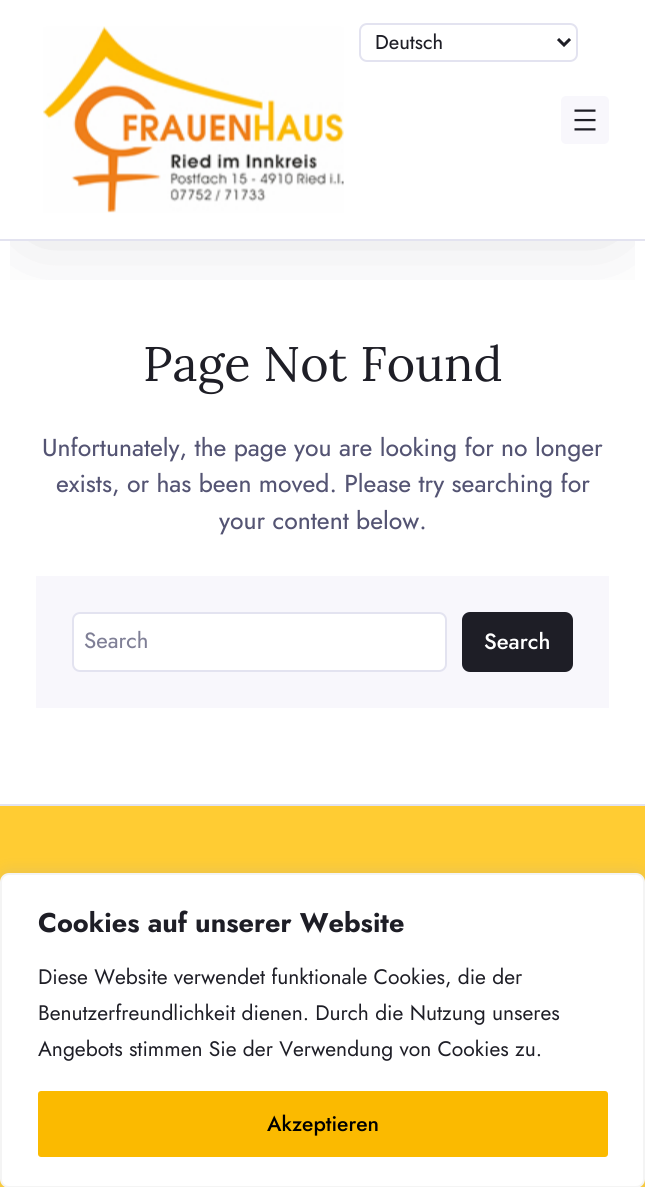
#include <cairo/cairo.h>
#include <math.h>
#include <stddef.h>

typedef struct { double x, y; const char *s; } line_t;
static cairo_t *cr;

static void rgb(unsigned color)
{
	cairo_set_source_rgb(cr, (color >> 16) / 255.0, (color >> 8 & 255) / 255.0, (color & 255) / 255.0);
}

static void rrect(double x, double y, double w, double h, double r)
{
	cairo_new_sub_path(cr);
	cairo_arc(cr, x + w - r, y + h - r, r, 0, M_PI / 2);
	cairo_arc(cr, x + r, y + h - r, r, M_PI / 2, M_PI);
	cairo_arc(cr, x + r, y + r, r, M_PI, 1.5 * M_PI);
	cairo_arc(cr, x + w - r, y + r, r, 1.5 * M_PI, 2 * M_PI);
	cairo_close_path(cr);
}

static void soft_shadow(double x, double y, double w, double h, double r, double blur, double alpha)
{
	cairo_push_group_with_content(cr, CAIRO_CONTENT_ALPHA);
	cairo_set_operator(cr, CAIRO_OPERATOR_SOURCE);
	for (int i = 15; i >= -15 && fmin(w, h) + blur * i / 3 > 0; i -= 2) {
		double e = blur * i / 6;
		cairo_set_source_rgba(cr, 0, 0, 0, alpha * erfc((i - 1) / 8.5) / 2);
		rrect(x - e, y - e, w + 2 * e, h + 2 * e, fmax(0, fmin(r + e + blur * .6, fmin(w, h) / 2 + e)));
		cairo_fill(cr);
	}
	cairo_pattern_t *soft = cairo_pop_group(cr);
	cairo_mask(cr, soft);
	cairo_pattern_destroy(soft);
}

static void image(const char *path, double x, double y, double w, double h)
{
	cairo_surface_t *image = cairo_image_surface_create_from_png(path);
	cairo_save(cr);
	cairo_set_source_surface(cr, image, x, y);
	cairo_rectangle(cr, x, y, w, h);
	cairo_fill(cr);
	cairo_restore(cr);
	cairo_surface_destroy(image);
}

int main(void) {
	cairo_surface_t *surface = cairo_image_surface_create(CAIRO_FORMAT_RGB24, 645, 1187);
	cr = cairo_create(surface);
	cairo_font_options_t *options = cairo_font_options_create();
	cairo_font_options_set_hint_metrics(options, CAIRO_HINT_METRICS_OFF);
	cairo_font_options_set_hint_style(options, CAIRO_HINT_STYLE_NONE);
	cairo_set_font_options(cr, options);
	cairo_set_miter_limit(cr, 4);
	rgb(0xffffff);
	cairo_paint(cr);
	cairo_save(cr);
	cairo_rectangle(cr, 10, 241, 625, 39);
	cairo_clip(cr);
	rgb(0x150e29);
	soft_shadow(30, 48, 585, 180, 0, 45, 0.16);
	cairo_restore(cr);
	rrect(360, 24, 217, 37, 7);
	rgb(0xe3e3f0);
	cairo_stroke(cr);
	cairo_new_path(cr);
	cairo_move_to(cr, 558, 39);
	cairo_line_to(cr, 564, 45);
	cairo_line_to(cr, 570, 39);
	rgb(0x1e1e26);
	cairo_set_line_width(cr, 3);
	cairo_stroke(cr);
	rgb(0xe3e3f0);
	cairo_rectangle(cr, 0, 239, 645, 2);
	cairo_fill(cr);
	image("img/1.png", 43, 26, 301, 187);
	rgb(0xf8f7fc);
	rrect(561, 96, 48, 48, 5);
	cairo_fill(cr);
	image("img/2.png", 574, 109, 22, 22);
	cairo_rectangle(cr, 36, 576, 573, 132);
	cairo_fill(cr);
	rgb(0xffffff);
	rrect(73, 613, 373, 58, 7);
	cairo_fill_preserve(cr);
	rgb(0xe3e3f0);
	cairo_set_line_width(cr, 2);
	cairo_stroke(cr);
	rgb(0x1e1e26);
	rrect(462, 612, 111, 60, 8);
	cairo_fill(cr);
	rgb(0xffcc33);
	cairo_rectangle(cr, 0, 806, 645, 381);
	cairo_fill(cr);
	rgb(0xe3e3f0);
	cairo_rectangle(cr, 0, 804, 645, 2);
	cairo_fill(cr);
	rgb(0xacabab);
	soft_shadow(0, 872, 645, 315, 9, 7.5, 0.3);
	rgb(0xffffff);
	rrect(1, 874, 643, 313, 8);
	cairo_fill_preserve(cr);
	rgb(0xf4f4f4);
	cairo_stroke(cr);
	rgb(0xfbba00);
	rrect(39.5, 1092.5, 567, 63, 1.5);
	cairo_fill_preserve(cr);
	cairo_set_line_width(cr, 3);
	cairo_stroke(cr);
	cairo_select_font_face(cr, "Jost", CAIRO_FONT_SLANT_NORMAL, CAIRO_FONT_WEIGHT_NORMAL);
	cairo_set_font_size(cr, 20);
	rgb(0x1e1e26);
	cairo_move_to(cr, 375, 49);
	cairo_show_text(cr, "Deutsch");
	cairo_select_font_face(cr, "Lora", CAIRO_FONT_SLANT_NORMAL, CAIRO_FONT_WEIGHT_NORMAL);
	cairo_set_font_size(cr, 48.5);
	cairo_move_to(cr, 143, 381);
	cairo_show_text(cr, "Page Not Found");
	cairo_select_font_face(cr, "Jost", CAIRO_FONT_SLANT_NORMAL, CAIRO_FONT_WEIGHT_NORMAL);
	cairo_set_font_size(cr, 24.5);
	rgb(0x545473);
	{
		static const line_t items[] = {
			{42, 456, "Unfortunately, the page you are looking for no longer"},
			{56, 492, "exists, or has been moved. Please try searching for"},
			{219, 529, "your content below."},
		};
		for (size_t i = 0; i < sizeof items / sizeof *items; i++) {
			cairo_move_to(cr, items[i].x, items[i].y);
			cairo_show_text(cr, items[i].s);
		}
	}
	cairo_set_font_size(cr, 22);
	rgb(0x7f7f96);
	cairo_move_to(cr, 84, 648);
	cairo_show_text(cr, "Search");
	cairo_select_font_face(cr, "Jost Medium", CAIRO_FONT_SLANT_NORMAL, CAIRO_FONT_WEIGHT_NORMAL);
	rgb(0xffffff);
	cairo_move_to(cr, 484, 649);
	cairo_show_text(cr, "Search");
	cairo_select_font_face(cr, "Jost", CAIRO_FONT_SLANT_NORMAL, CAIRO_FONT_WEIGHT_BOLD);
	cairo_set_font_size(cr, 27);
	rgb(0x1e1e26);
	cairo_move_to(cr, 38, 932);
	cairo_show_text(cr, "Cookies auf unserer Website");
	cairo_select_font_face(cr, "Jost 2", CAIRO_FONT_SLANT_NORMAL, CAIRO_FONT_WEIGHT_NORMAL);
	cairo_set_font_size(cr, 21);
	{
		static const line_t items[] = {
			{38, 984, "Diese Website verwendet funktionale Cookies, die der"},
			{38, 1020, "Benutzerfreundlichkeit dienen. Durch die Nutzung unseres"},
			{38, 1056, "Angebots stimmen Sie der Verwendung von Cookies zu."},
		};
		for (size_t i = 0; i < sizeof items / sizeof *items; i++) {
			cairo_move_to(cr, items[i].x, items[i].y);
			cairo_show_text(cr, items[i].s);
		}
	}
	cairo_select_font_face(cr, "Jost Medium", CAIRO_FONT_SLANT_NORMAL, CAIRO_FONT_WEIGHT_NORMAL);
	rgb(0x000000);
	cairo_move_to(cr, 267, 1131);
	cairo_show_text(cr, "Akzeptieren");
	cairo_surface_write_to_png(surface, "page.png");
	cairo_font_options_destroy(options);
	cairo_destroy(cr);
	cairo_surface_destroy(surface);
	return 0;
}
